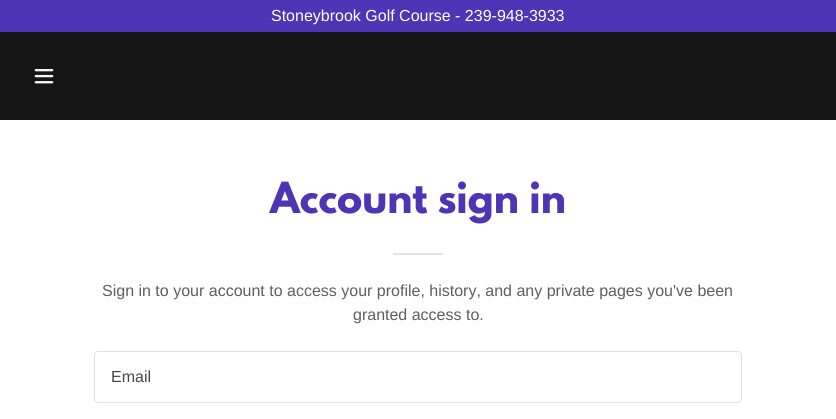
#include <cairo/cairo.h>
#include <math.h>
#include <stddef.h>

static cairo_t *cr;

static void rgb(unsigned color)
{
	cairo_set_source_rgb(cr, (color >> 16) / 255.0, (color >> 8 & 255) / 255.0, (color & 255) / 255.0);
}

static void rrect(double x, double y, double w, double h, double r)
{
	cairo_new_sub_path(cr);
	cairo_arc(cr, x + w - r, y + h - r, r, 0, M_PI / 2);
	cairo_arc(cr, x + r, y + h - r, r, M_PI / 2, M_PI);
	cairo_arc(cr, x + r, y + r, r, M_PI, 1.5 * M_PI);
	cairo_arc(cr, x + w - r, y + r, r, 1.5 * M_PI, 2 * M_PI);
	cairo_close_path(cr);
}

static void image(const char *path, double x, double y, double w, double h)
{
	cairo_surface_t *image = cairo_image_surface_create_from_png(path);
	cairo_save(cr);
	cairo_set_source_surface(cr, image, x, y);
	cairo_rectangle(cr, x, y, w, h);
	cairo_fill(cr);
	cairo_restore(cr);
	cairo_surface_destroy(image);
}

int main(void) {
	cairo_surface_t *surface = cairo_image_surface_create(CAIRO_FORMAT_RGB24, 836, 419);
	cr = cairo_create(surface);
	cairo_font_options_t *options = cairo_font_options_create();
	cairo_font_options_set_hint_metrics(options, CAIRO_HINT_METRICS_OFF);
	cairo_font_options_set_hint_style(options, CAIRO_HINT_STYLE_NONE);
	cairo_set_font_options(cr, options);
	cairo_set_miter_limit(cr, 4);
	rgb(0x161616);
	cairo_paint(cr);
	rgb(0x4d35b5);
	cairo_rectangle(cr, 0, 0, 836, 32);
	cairo_fill(cr);
	image("img/1.png", 34, 69, 20, 15);
	rgb(0xffffff);
	cairo_rectangle(cr, 0, 120, 836, 299);
	cairo_fill(cr);
	rgb(0xe2e2e2);
	cairo_rectangle(cr, 393, 253, 50, 2);
	cairo_fill(cr);
	rrect(94.5, 351.5, 647, 51, 3.5);
	cairo_set_line_width(cr, 1);
	cairo_stroke(cr);
	cairo_select_font_face(cr, "Liberation Sans", CAIRO_FONT_SLANT_NORMAL, CAIRO_FONT_WEIGHT_NORMAL);
	cairo_set_font_size(cr, 16);
	rgb(0xffffff);
	cairo_move_to(cr, 271, 21);
	cairo_show_text(cr, "Stoneybrook Golf Course - 239-948-3933");
	cairo_select_font_face(cr, "League Spartan", CAIRO_FONT_SLANT_NORMAL, CAIRO_FONT_WEIGHT_BOLD);
	cairo_set_font_size(cr, 38);
	rgb(0x4d35b5);
	cairo_move_to(cr, 270, 213);
	cairo_show_text(cr, "Account sign in");
	cairo_select_font_face(cr, "Liberation Sans", CAIRO_FONT_SLANT_NORMAL, CAIRO_FONT_WEIGHT_NORMAL);
	cairo_set_font_size(cr, 16);
	rgb(0x5e5e5e);
	cairo_move_to(cr, 102, 296);
	cairo_show_text(cr, "Sign in to your account to access your profile, history, and any private pages you've been");
	cairo_move_to(cr, 353, 320);
	cairo_show_text(cr, "granted access to.");
	rgb(0x474747);
	cairo_move_to(cr, 111, 382);
	cairo_show_text(cr, "Email");
	cairo_surface_write_to_png(surface, "page.png");
	cairo_font_options_destroy(options);
	cairo_destroy(cr);
	cairo_surface_destroy(surface);
	return 0;
}
